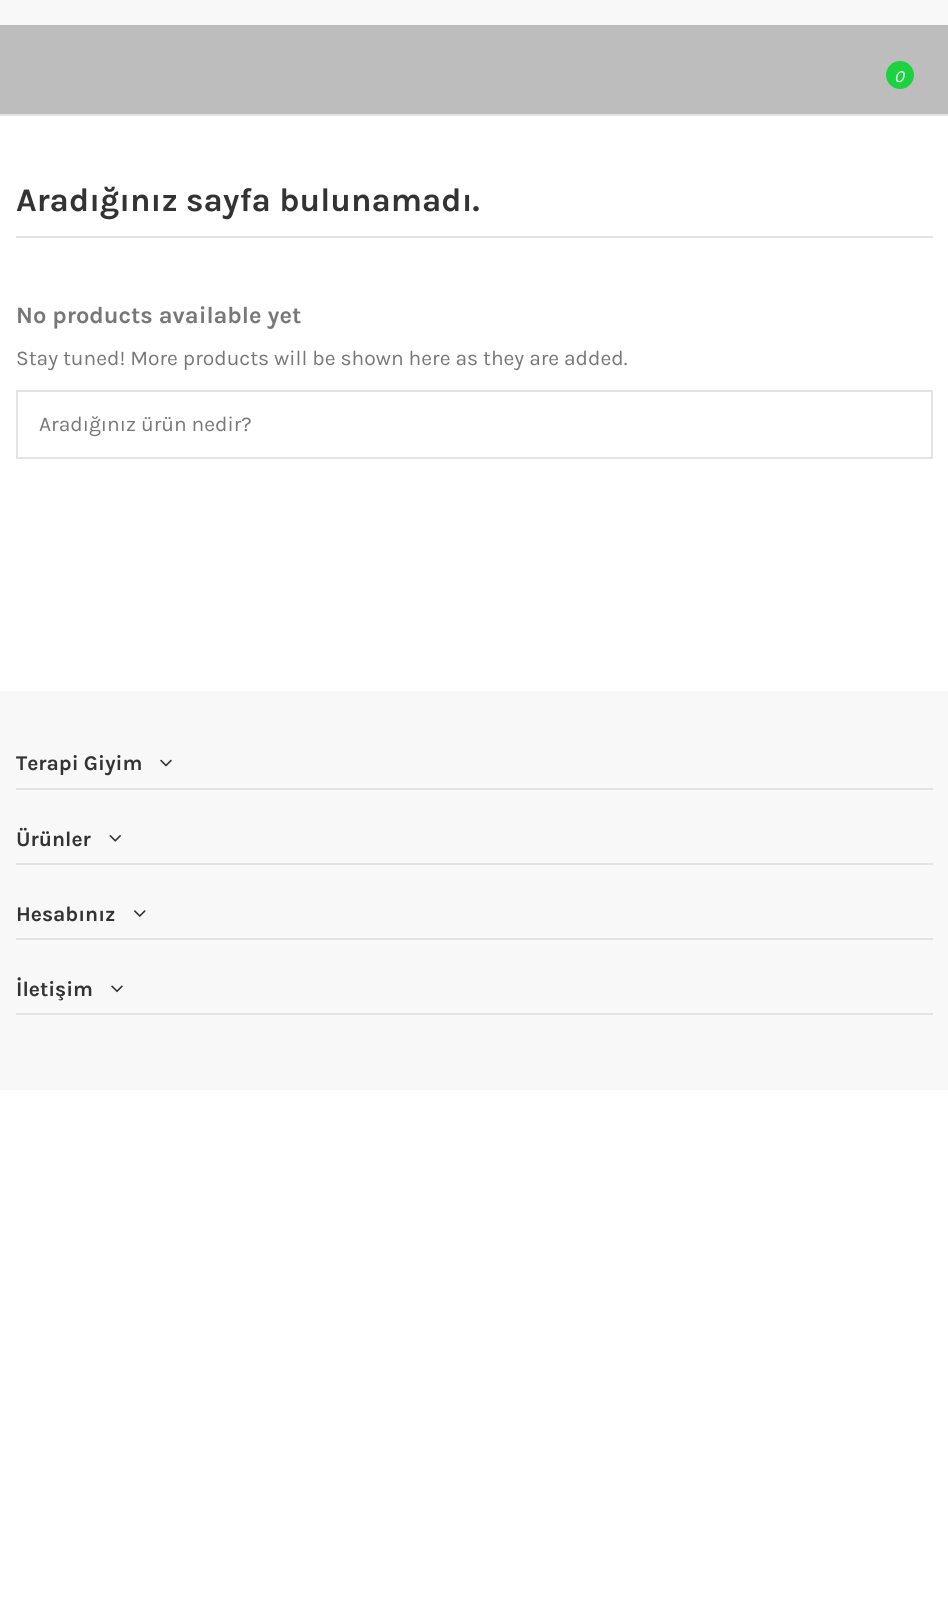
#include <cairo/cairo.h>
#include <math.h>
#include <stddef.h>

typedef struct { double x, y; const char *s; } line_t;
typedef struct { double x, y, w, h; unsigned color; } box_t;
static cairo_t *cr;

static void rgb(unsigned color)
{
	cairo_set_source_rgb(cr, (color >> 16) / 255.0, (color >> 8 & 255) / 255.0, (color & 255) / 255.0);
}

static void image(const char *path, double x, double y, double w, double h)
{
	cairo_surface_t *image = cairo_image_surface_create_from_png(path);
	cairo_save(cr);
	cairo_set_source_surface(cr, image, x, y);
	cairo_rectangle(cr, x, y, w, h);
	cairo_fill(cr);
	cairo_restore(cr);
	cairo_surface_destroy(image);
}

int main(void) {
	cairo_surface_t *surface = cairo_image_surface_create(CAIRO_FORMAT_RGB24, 948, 1597);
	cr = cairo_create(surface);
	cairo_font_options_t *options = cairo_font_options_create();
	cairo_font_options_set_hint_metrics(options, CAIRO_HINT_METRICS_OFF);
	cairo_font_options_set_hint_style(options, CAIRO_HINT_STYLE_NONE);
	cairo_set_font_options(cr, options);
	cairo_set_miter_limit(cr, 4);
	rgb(0xffffff);
	cairo_paint(cr);
	{
		static const box_t items[] = {
			{0, 25, 948, 89, 0xbdbdbd},
			{0, 0, 948, 25, 0xf8f8f8},
			{0, 114, 948, 2, 0xe3e3e3},
		};
		for (size_t i = 0; i < sizeof items / sizeof *items; i++) {
			rgb(items[i].color);
			cairo_rectangle(cr, items[i].x, items[i].y, items[i].w, items[i].h);
			cairo_fill(cr);
		}
	}
	rgb(0x1bd33f);
	cairo_arc(cr, 900, 75, 14, 0, 2 * M_PI);
	cairo_fill(cr);
	rgb(0xe3e3e3);
	cairo_rectangle(cr, 16, 236, 917, 2);
	cairo_fill(cr);
	cairo_rectangle(cr, 17, 391, 915, 67);
	cairo_stroke(cr);
	rgb(0xf8f8f8);
	cairo_rectangle(cr, 0, 691, 948, 399);
	cairo_fill(cr);
	rgb(0xe3e3e3);
	cairo_rectangle(cr, 16, 788, 917, 2);
	cairo_fill(cr);
	image("img/1.png", 160, 759, 12, 8);
	cairo_rectangle(cr, 16, 863, 917, 2);
	cairo_fill(cr);
	image("img/2.png", 109, 835, 12, 7);
	cairo_rectangle(cr, 16, 938, 917, 2);
	cairo_fill(cr);
	image("img/3.png", 134, 910, 12, 7);
	cairo_rectangle(cr, 16, 1013, 917, 2);
	cairo_fill(cr);
	image("img/4.png", 111, 985, 12, 8);
	cairo_select_font_face(cr, "Karla", CAIRO_FONT_SLANT_ITALIC, CAIRO_FONT_WEIGHT_NORMAL);
	cairo_set_font_size(cr, 17);
	rgb(0xffffff);
	cairo_move_to(cr, 894, 82);
	cairo_show_text(cr, "0");
	cairo_select_font_face(cr, "Karla", CAIRO_FONT_SLANT_NORMAL, CAIRO_FONT_WEIGHT_BOLD);
	cairo_set_font_size(cr, 33);
	rgb(0x333333);
	cairo_move_to(cr, 16, 211);
	cairo_show_text(cr, "Aradığınız sayfa bulunamadı.");
	cairo_set_font_size(cr, 23.6);
	rgb(0x777777);
	cairo_move_to(cr, 16, 323);
	cairo_show_text(cr, "No products available yet");
	cairo_select_font_face(cr, "Karla", CAIRO_FONT_SLANT_NORMAL, CAIRO_FONT_WEIGHT_NORMAL);
	cairo_set_font_size(cr, 21);
	cairo_move_to(cr, 16, 365);
	cairo_show_text(cr, "Stay tuned! More products will be shown here as they are added.");
	cairo_move_to(cr, 39, 431);
	cairo_show_text(cr, "Aradığınız ürün nedir?");
	cairo_select_font_face(cr, "Karla", CAIRO_FONT_SLANT_NORMAL, CAIRO_FONT_WEIGHT_BOLD);
	rgb(0x333333);
	{
		static const line_t items[] = {
			{16, 770, "Terapi Giyim"},
			{16, 846, "Ürünler"},
			{16, 921, "Hesabınız"},
			{16, 996, "İletişim"},
		};
		for (size_t i = 0; i < sizeof items / sizeof *items; i++) {
			cairo_move_to(cr, items[i].x, items[i].y);
			cairo_show_text(cr, items[i].s);
		}
	}
	cairo_surface_write_to_png(surface, "page.png");
	cairo_font_options_destroy(options);
	cairo_destroy(cr);
	cairo_surface_destroy(surface);
	return 0;
}
